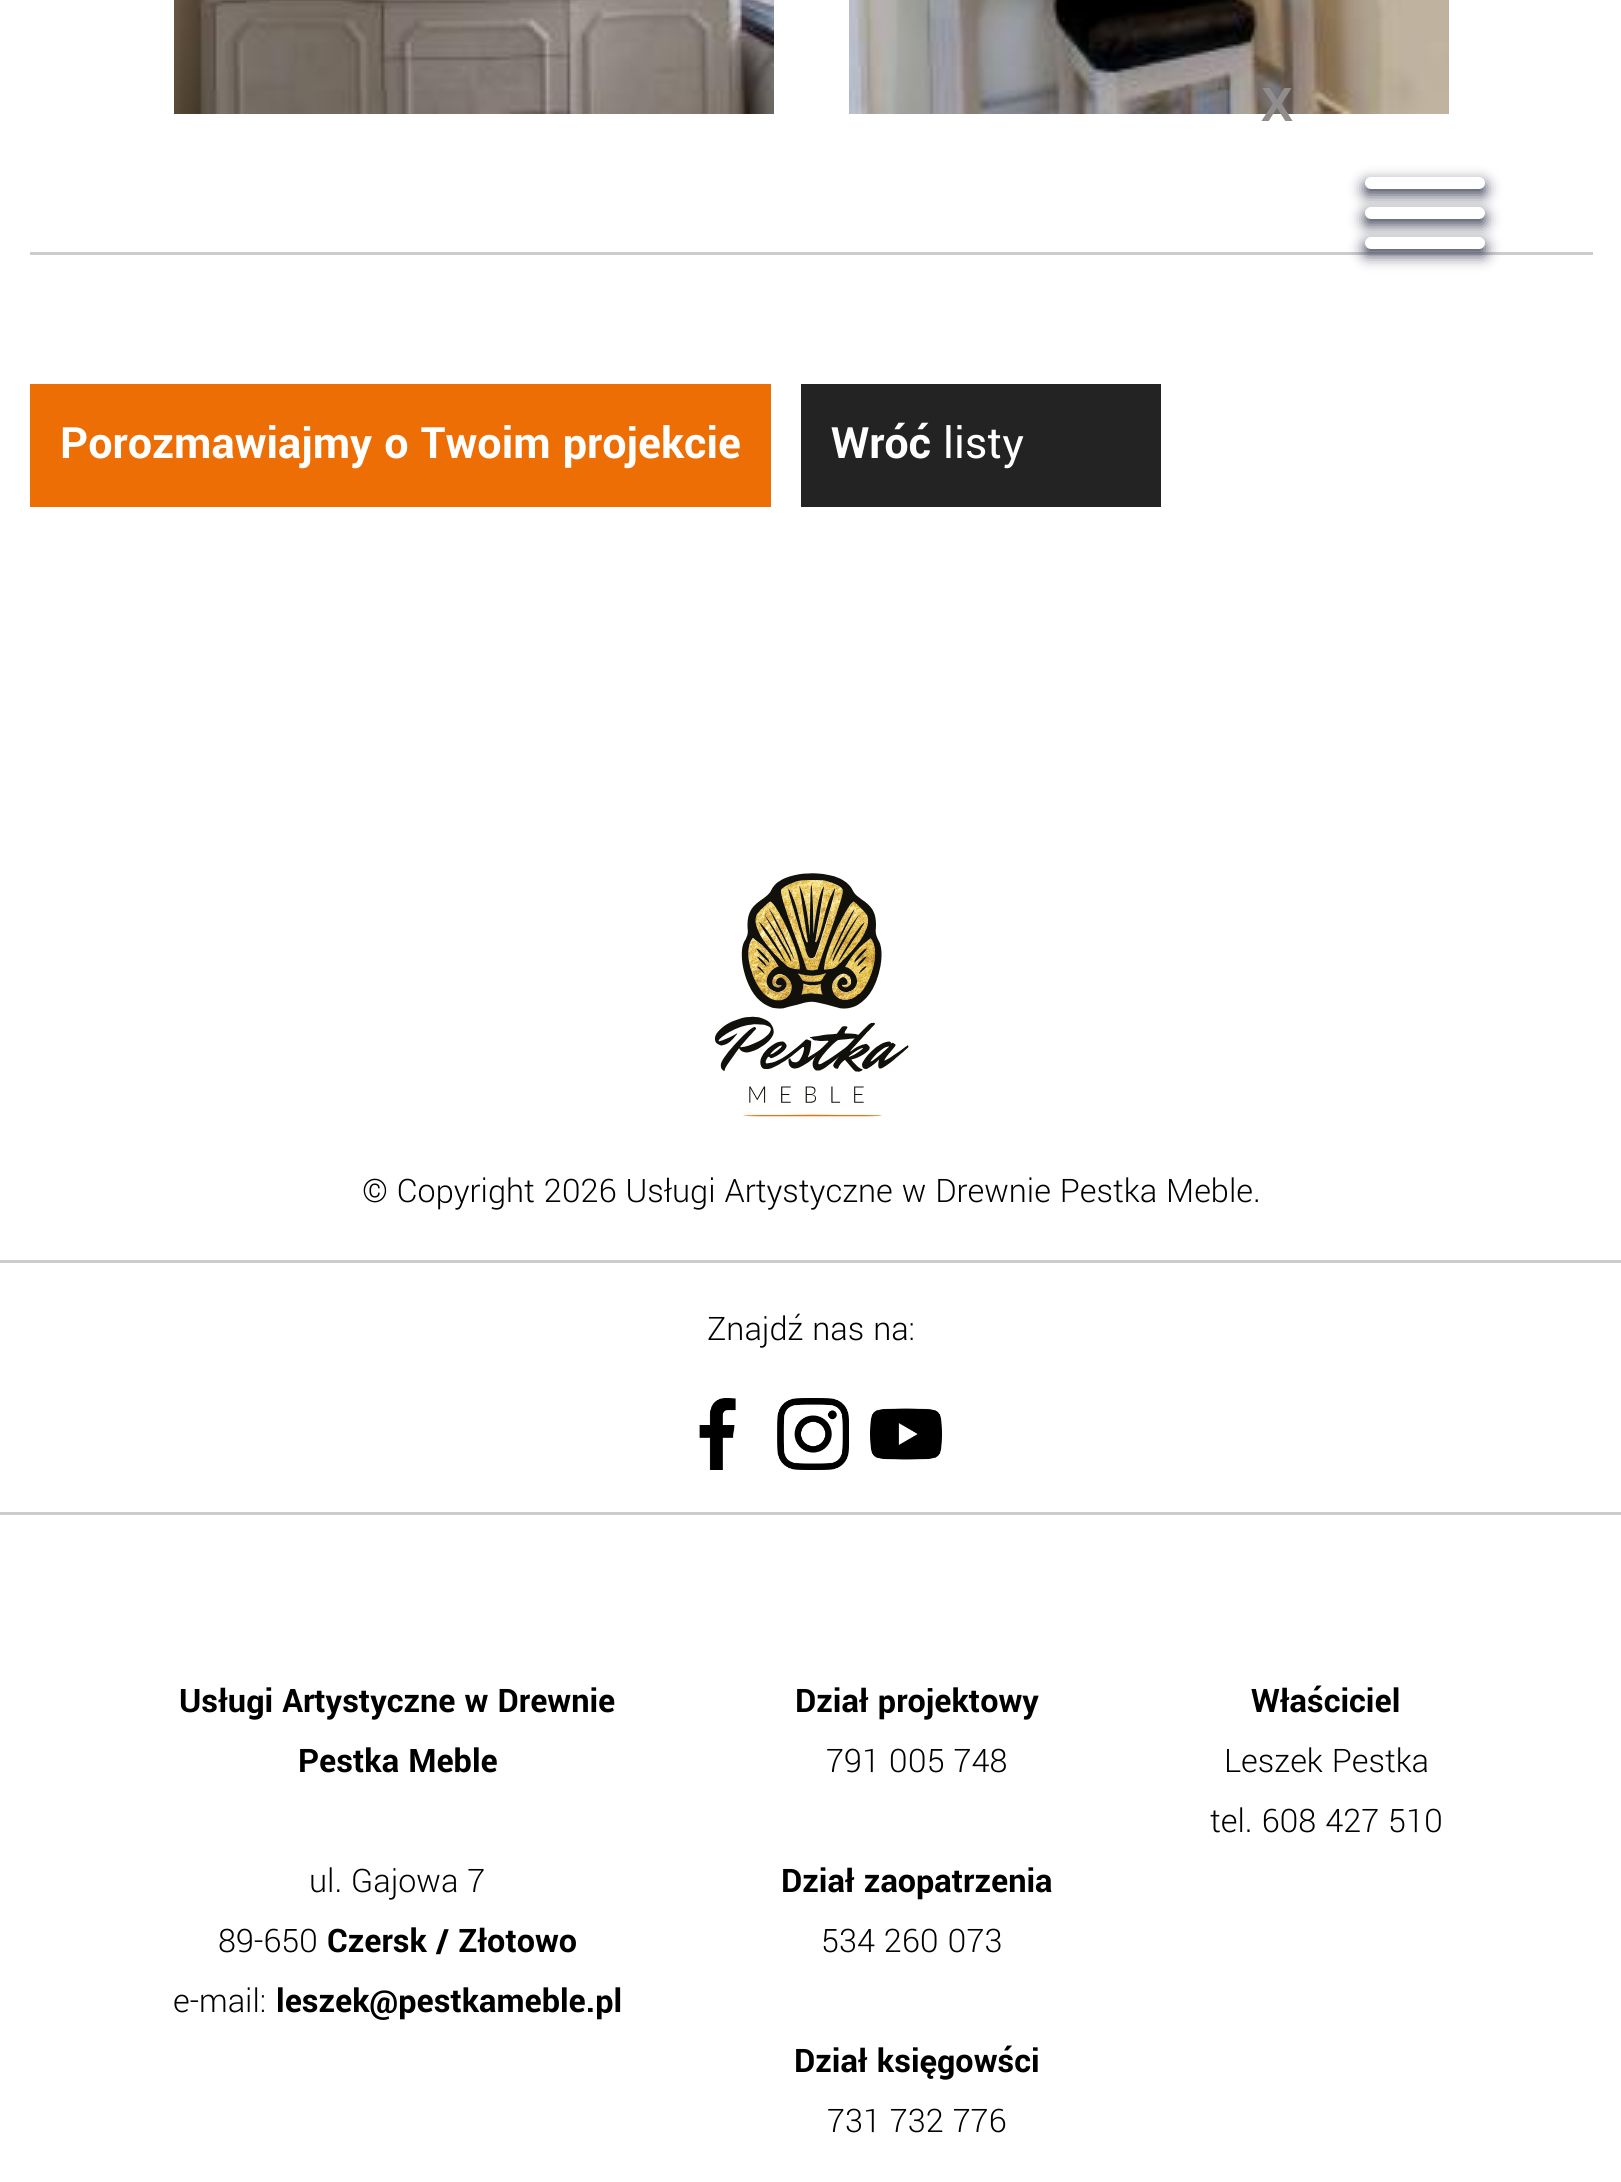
#include <cairo/cairo.h>
#include <math.h>
#include <stddef.h>

static cairo_t *cr;

static void rgb(unsigned color)
{
	cairo_set_source_rgb(cr, (color >> 16) / 255.0, (color >> 8 & 255) / 255.0, (color & 255) / 255.0);
}

static void rrect(double x, double y, double w, double h, double r)
{
	cairo_new_sub_path(cr);
	cairo_arc(cr, x + w - r, y + h - r, r, 0, M_PI / 2);
	cairo_arc(cr, x + r, y + h - r, r, M_PI / 2, M_PI);
	cairo_arc(cr, x + r, y + r, r, M_PI, 1.5 * M_PI);
	cairo_arc(cr, x + w - r, y + r, r, 1.5 * M_PI, 2 * M_PI);
	cairo_close_path(cr);
}

static void soft_shadow(double x, double y, double w, double h, double r, double blur, double alpha)
{
	cairo_push_group_with_content(cr, CAIRO_CONTENT_ALPHA);
	cairo_set_operator(cr, CAIRO_OPERATOR_SOURCE);
	for (int i = 15; i >= -15 && fmin(w, h) + blur * i / 3 > 0; i -= 2) {
		double e = blur * i / 6;
		cairo_set_source_rgba(cr, 0, 0, 0, alpha * erfc((i - 1) / 8.5) / 2);
		rrect(x - e, y - e, w + 2 * e, h + 2 * e, fmax(0, fmin(r + e + blur * .6, fmin(w, h) / 2 + e)));
		cairo_fill(cr);
	}
	cairo_pattern_t *soft = cairo_pop_group(cr);
	cairo_mask(cr, soft);
	cairo_pattern_destroy(soft);
}

static void image(const char *path, double x, double y, double w, double h)
{
	cairo_surface_t *image = cairo_image_surface_create_from_png(path);
	cairo_save(cr);
	cairo_set_source_surface(cr, image, x, y);
	cairo_rectangle(cr, x, y, w, h);
	cairo_fill(cr);
	cairo_restore(cr);
	cairo_surface_destroy(image);
}

int main(void) {
	cairo_surface_t *surface = cairo_image_surface_create(CAIRO_FORMAT_RGB24, 1621, 2182);
	cr = cairo_create(surface);
	cairo_font_options_t *options = cairo_font_options_create();
	cairo_font_options_set_hint_metrics(options, CAIRO_HINT_METRICS_OFF);
	cairo_font_options_set_hint_style(options, CAIRO_HINT_STYLE_NONE);
	cairo_set_font_options(cr, options);
	cairo_set_miter_limit(cr, 4);
	rgb(0xffffff);
	cairo_paint(cr);
	rgb(0x42445a);
	soft_shadow(1365, 183, 120, 12, 6, 7.5, 1);
	rgb(0xffffff);
	rrect(1365, 177, 120, 12, 6);
	cairo_fill(cr);
	rgb(0x42445a);
	soft_shadow(1365, 213, 120, 12, 6, 7.5, 1);
	rgb(0xffffff);
	rrect(1365, 207, 120, 12, 6);
	cairo_fill(cr);
	rgb(0xcccccc);
	cairo_rectangle(cr, 30, 252, 1563, 3);
	cairo_fill(cr);
	rgb(0x42445a);
	soft_shadow(1365, 243, 120, 12, 6, 7.5, 1);
	rgb(0xffffff);
	rrect(1365, 237, 120, 12, 6);
	cairo_fill(cr);
	image("img/1.png", 174, 0, 600, 114);
	image("img/2.png", 849, 0, 600, 114);
	rgb(0xed6e04);
	cairo_rectangle(cr, 30, 384, 741, 123);
	cairo_fill(cr);
	rgb(0x232323);
	cairo_rectangle(cr, 801, 384, 360, 123);
	cairo_fill(cr);
	image("img/3.png", 714, 873, 195, 244);
	rgb(0xcccccc);
	cairo_rectangle(cr, 0, 1260, 1621, 3);
	cairo_fill(cr);
	image("img/4.png", 699, 1398, 37, 72);
	image("img/5.png", 777, 1398, 72, 72);
	image("img/6.png", 870, 1408, 72, 52);
	cairo_rectangle(cr, 0, 1512, 1621, 3);
	cairo_fill(cr);
	cairo_select_font_face(cr, "Liberation Sans", CAIRO_FONT_SLANT_NORMAL, CAIRO_FONT_WEIGHT_BOLD);
	cairo_set_font_size(cr, 48);
	rgb(0x918d8c);
	cairo_move_to(cr, 1261, 121);
	cairo_show_text(cr, "X");
	cairo_select_font_face(cr, "Yantramanav", CAIRO_FONT_SLANT_NORMAL, CAIRO_FONT_WEIGHT_BOLD);
	rgb(0xffffff);
	cairo_move_to(cr, 60, 458);
	cairo_show_text(cr, "Porozmawiajmy o Twoim projekcie");
	cairo_move_to(cr, 831, 458);
	cairo_show_text(cr, "Wróć");
	cairo_select_font_face(cr, "Yantramanav", CAIRO_FONT_SLANT_NORMAL, CAIRO_FONT_WEIGHT_NORMAL);
	cairo_move_to(cr, 943, 458);
	cairo_show_text(cr, "listy");
	cairo_select_font_face(cr, "Yantramanav Light", CAIRO_FONT_SLANT_NORMAL, CAIRO_FONT_WEIGHT_NORMAL);
	cairo_set_font_size(cr, 36);
	rgb(0x000000);
	cairo_move_to(cr, 362, 1202);
	cairo_show_text(cr, "© Copyright 2026 Usługi Artystyczne w Drewnie Pestka Meble.");
	cairo_move_to(cr, 707, 1340);
	cairo_show_text(cr, "Znajdź nas na:");
	cairo_select_font_face(cr, "Yantramanav", CAIRO_FONT_SLANT_NORMAL, CAIRO_FONT_WEIGHT_BOLD);
	cairo_move_to(cr, 179, 1712);
	cairo_show_text(cr, "Usługi Artystyczne w Drewnie");
	cairo_move_to(cr, 298, 1772);
	cairo_show_text(cr, "Pestka Meble");
	cairo_select_font_face(cr, "Yantramanav Light", CAIRO_FONT_SLANT_NORMAL, CAIRO_FONT_WEIGHT_NORMAL);
	cairo_move_to(cr, 309, 1892);
	cairo_show_text(cr, "ul. Gajowa 7");
	cairo_move_to(cr, 218, 1952);
	cairo_show_text(cr, "89-650");
	cairo_select_font_face(cr, "Yantramanav", CAIRO_FONT_SLANT_NORMAL, CAIRO_FONT_WEIGHT_BOLD);
	cairo_move_to(cr, 327, 1952);
	cairo_show_text(cr, "Czersk / Złotowo");
	cairo_select_font_face(cr, "Yantramanav Light", CAIRO_FONT_SLANT_NORMAL, CAIRO_FONT_WEIGHT_NORMAL);
	cairo_move_to(cr, 173, 2012);
	cairo_show_text(cr, "e-mail:");
	cairo_select_font_face(cr, "Yantramanav", CAIRO_FONT_SLANT_NORMAL, CAIRO_FONT_WEIGHT_BOLD);
	cairo_move_to(cr, 276, 2012);
	cairo_show_text(cr, "leszek@pestkameble.pl");
	cairo_move_to(cr, 795, 1712);
	cairo_show_text(cr, "Dział projektowy");
	cairo_select_font_face(cr, "Yantramanav Light", CAIRO_FONT_SLANT_NORMAL, CAIRO_FONT_WEIGHT_NORMAL);
	cairo_move_to(cr, 826, 1772);
	cairo_show_text(cr, "791 005 748");
	cairo_select_font_face(cr, "Yantramanav", CAIRO_FONT_SLANT_NORMAL, CAIRO_FONT_WEIGHT_BOLD);
	cairo_move_to(cr, 781, 1892);
	cairo_show_text(cr, "Dział zaopatrzenia");
	cairo_select_font_face(cr, "Yantramanav Light", CAIRO_FONT_SLANT_NORMAL, CAIRO_FONT_WEIGHT_NORMAL);
	cairo_move_to(cr, 821, 1952);
	cairo_show_text(cr, "534 260 073");
	cairo_select_font_face(cr, "Yantramanav", CAIRO_FONT_SLANT_NORMAL, CAIRO_FONT_WEIGHT_BOLD);
	cairo_move_to(cr, 794, 2072);
	cairo_show_text(cr, "Dział księgowści");
	cairo_select_font_face(cr, "Yantramanav Light", CAIRO_FONT_SLANT_NORMAL, CAIRO_FONT_WEIGHT_NORMAL);
	cairo_move_to(cr, 827, 2132);
	cairo_show_text(cr, "731 732 776");
	cairo_select_font_face(cr, "Yantramanav", CAIRO_FONT_SLANT_NORMAL, CAIRO_FONT_WEIGHT_BOLD);
	cairo_move_to(cr, 1251, 1712);
	cairo_show_text(cr, "Właściciel");
	cairo_select_font_face(cr, "Yantramanav Light", CAIRO_FONT_SLANT_NORMAL, CAIRO_FONT_WEIGHT_NORMAL);
	cairo_move_to(cr, 1224, 1772);
	cairo_show_text(cr, "Leszek Pestka");
	cairo_move_to(cr, 1210, 1832);
	cairo_show_text(cr, "tel. 608 427 510");
	cairo_surface_write_to_png(surface, "page.png");
	cairo_font_options_destroy(options);
	cairo_destroy(cr);
	cairo_surface_destroy(surface);
	return 0;
}
